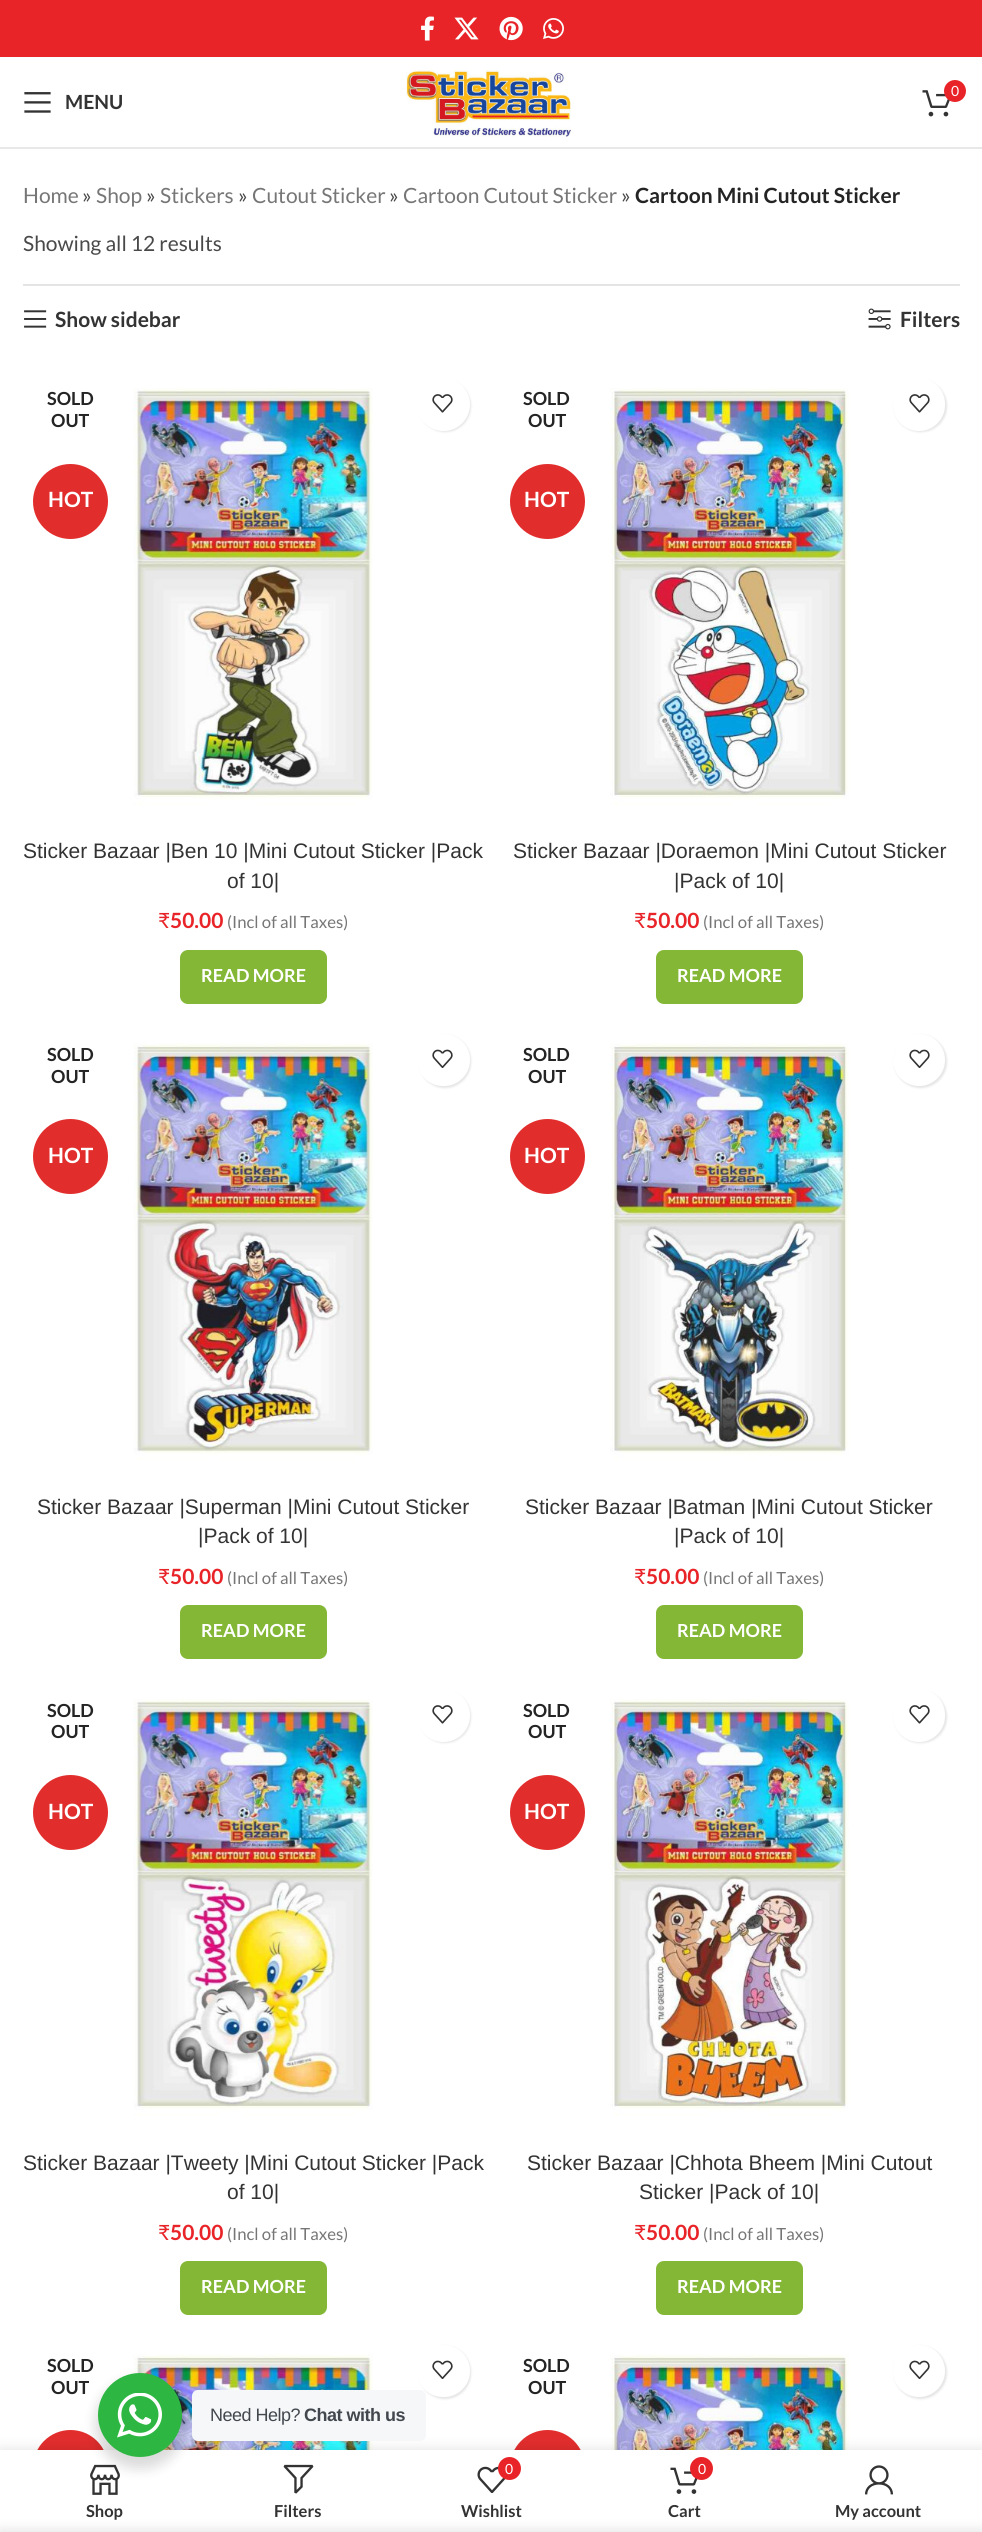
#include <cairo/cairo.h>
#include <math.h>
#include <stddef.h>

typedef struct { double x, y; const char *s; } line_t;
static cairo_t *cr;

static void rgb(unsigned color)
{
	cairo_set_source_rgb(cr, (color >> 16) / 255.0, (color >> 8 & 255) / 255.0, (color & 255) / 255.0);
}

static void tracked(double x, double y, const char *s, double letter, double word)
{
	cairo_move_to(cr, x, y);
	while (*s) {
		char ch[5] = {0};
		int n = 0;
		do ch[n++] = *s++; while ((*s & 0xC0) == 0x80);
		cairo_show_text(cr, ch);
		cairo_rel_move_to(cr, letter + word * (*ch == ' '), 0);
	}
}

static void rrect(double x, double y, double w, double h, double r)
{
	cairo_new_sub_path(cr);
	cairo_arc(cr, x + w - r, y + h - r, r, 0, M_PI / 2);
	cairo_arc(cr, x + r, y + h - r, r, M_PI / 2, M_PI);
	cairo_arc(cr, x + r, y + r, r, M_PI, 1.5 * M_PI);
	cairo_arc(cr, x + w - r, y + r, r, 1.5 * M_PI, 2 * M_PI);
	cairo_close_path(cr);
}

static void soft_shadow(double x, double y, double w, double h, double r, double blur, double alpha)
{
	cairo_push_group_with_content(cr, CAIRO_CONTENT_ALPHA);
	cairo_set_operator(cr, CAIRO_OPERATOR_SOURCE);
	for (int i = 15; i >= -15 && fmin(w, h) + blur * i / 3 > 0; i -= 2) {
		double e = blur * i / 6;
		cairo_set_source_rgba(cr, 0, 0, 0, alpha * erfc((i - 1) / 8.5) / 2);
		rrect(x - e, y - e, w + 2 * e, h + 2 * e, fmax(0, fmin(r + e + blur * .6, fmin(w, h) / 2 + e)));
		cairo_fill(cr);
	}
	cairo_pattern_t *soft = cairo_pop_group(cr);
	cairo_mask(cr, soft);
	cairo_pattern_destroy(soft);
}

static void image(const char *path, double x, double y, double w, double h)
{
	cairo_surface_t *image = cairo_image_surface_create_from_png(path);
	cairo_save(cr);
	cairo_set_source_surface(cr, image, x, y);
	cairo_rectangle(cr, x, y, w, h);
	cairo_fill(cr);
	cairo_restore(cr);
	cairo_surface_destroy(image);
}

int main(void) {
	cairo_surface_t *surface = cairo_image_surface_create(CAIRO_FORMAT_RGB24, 982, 2532);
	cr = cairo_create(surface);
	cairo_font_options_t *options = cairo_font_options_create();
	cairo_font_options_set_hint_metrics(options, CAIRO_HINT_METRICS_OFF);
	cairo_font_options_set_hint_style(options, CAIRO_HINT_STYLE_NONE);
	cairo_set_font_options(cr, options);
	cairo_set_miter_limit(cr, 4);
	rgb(0xffffff);
	cairo_paint(cr);
	rgb(0xe82429);
	cairo_rectangle(cr, 0, 0, 982, 57);
	cairo_fill(cr);
	image("img/1.png", 421, 16, 13, 25);
	image("img/2.png", 454, 17, 25, 23);
	image("img/3.png", 499, 16, 24, 25);
	image("img/4.png", 543, 18, 21, 21);
	rgb(0xe8e8e8);
	cairo_rectangle(cr, 0, 147, 982, 2);
	cairo_fill(cr);
	image("img/5.png", 406, 70, 165, 67);
	image("img/6.png", 922, 90, 28, 27);
	rgb(0xe82429);
	cairo_arc(cr, 955, 91, 11, 0, 2 * M_PI);
	cairo_fill(cr);
	image("img/7.png", 24, 92, 27, 21);
	rgb(0xe4e4e4);
	cairo_rectangle(cr, 23, 284, 937, 2);
	cairo_fill(cr);
	image("img/8.png", 24, 310, 23, 18);
	image("img/9.png", 868, 308, 23, 22);
	rgb(0xe22d2d);
	cairo_arc(cr, 70.5, 501.5, 37.5, 0, 2 * M_PI);
	cairo_fill(cr);
	image("img/10.png", 133, 388, 240, 417);
	rgb(0x000000);
	soft_shadow(419, 380, 52, 52, 26, 1, 0.1);
	rgb(0xffffff);
	cairo_arc(cr, 443.5, 404.5, 26.5, 0, 2 * M_PI);
	cairo_fill(cr);
	image("img/11.png", 432, 394, 21, 19);
	rgb(0x83b735);
	rrect(180, 950, 147, 54, 8);
	cairo_fill(cr);
	rgb(0xe22d2d);
	cairo_arc(cr, 547.5, 501.5, 37.5, 0, 2 * M_PI);
	cairo_fill(cr);
	image("img/12.png", 610, 388, 239, 417);
	rgb(0x000000);
	soft_shadow(894, 380, 53, 52, 26, 1, 0.1);
	rgb(0xffffff);
	rrect(893, 378, 52, 53, 26);
	cairo_fill(cr);
	image("img/11.png", 909, 394, 21, 19);
	rgb(0x83b735);
	rrect(656, 950, 147, 54, 8);
	cairo_fill(cr);
	rgb(0xe22d2d);
	cairo_arc(cr, 70.5, 1156.5, 37.5, 0, 2 * M_PI);
	cairo_fill(cr);
	image("img/13.png", 133, 1043, 240, 417);
	rgb(0x000000);
	soft_shadow(419, 1035, 52, 53, 26, 1, 0.1);
	rgb(0xffffff);
	rrect(417, 1034, 53, 52, 26);
	cairo_fill(cr);
	image("img/14.png", 432, 1049, 21, 19);
	rgb(0x83b735);
	rrect(180, 1605, 147, 54, 8);
	cairo_fill(cr);
	rgb(0xe22d2d);
	cairo_arc(cr, 547.5, 1156.5, 37.5, 0, 2 * M_PI);
	cairo_fill(cr);
	image("img/15.png", 610, 1043, 239, 417);
	rgb(0x000000);
	soft_shadow(894, 1035, 53, 53, 26.5, 1, 0.1);
	rgb(0xffffff);
	cairo_arc(cr, 919, 1060, 26, 0, 2 * M_PI);
	cairo_fill(cr);
	image("img/14.png", 909, 1049, 21, 19);
	rgb(0x83b735);
	rrect(656, 1605, 147, 54, 8);
	cairo_fill(cr);
	rgb(0xe22d2d);
	cairo_arc(cr, 70.5, 1812.5, 37.5, 0, 2 * M_PI);
	cairo_fill(cr);
	image("img/16.png", 133, 1699, 240, 417);
	rgb(0x000000);
	soft_shadow(419, 1691, 52, 52, 26, 1, 0.1);
	rgb(0xffffff);
	cairo_arc(cr, 443.5, 1715.5, 26.5, 0, 2 * M_PI);
	cairo_fill(cr);
	image("img/11.png", 432, 1705, 21, 19);
	rgb(0x83b735);
	rrect(180, 2261, 147, 54, 8);
	cairo_fill(cr);
	rgb(0xe22d2d);
	cairo_arc(cr, 547.5, 1812.5, 37.5, 0, 2 * M_PI);
	cairo_fill(cr);
	image("img/17.png", 610, 1699, 239, 417);
	rgb(0x000000);
	soft_shadow(894, 1691, 53, 52, 26, 1, 0.1);
	rgb(0xffffff);
	rrect(893, 1689, 52, 53, 26);
	cairo_fill(cr);
	image("img/11.png", 909, 1705, 21, 19);
	rgb(0x83b735);
	rrect(656, 2261, 147, 54, 8);
	cairo_fill(cr);
	rgb(0xe22d2d);
	cairo_arc(cr, 70.5, 2467.5, 37.5, 0, 2 * M_PI);
	cairo_fill(cr);
	image("img/18.png", 133, 2354, 240, 96);
	rgb(0x000000);
	soft_shadow(419, 2346, 52, 53, 26, 1, 0.1);
	rgb(0xffffff);
	rrect(417, 2345, 53, 52, 26);
	cairo_fill(cr);
	image("img/14.png", 432, 2360, 21, 19);
	rgb(0xe22d2d);
	cairo_arc(cr, 547.5, 2467.5, 37.5, 0, 2 * M_PI);
	cairo_fill(cr);
	image("img/19.png", 610, 2354, 239, 96);
	rgb(0x000000);
	soft_shadow(894, 2346, 53, 53, 26.5, 1, 0.1);
	rgb(0xffffff);
	cairo_arc(cr, 919, 2371, 26, 0, 2 * M_PI);
	cairo_fill(cr);
	image("img/14.png", 909, 2360, 21, 19);
	rgb(0x000000);
	soft_shadow(0, 2450, 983, 82, 0, 7, 0.12);
	rgb(0xffffff);
	cairo_rectangle(cr, 0, 2450, 982, 82);
	cairo_fill(cr);
	image("img/21.png", 90, 2464, 30, 31);
	rgb(0x000000);
	soft_shadow(95, 2379, 90, 90, 45, 6, 0.14);
	rgb(0x2db742);
	cairo_arc(cr, 140, 2415, 42, 0, 2 * M_PI);
	cairo_fill(cr);
	image("img/20.png", 117, 2393, 45, 45);
	rgb(0xf5f7f9);
	rrect(192, 2390, 234, 51, 6);
	cairo_fill(cr);
	image("img/22.png", 283, 2464, 31, 30);
	image("img/23.png", 477, 2466, 29, 27);
	rgb(0xe82429);
	cairo_arc(cr, 509.5, 2468.5, 11.5, 0, 2 * M_PI);
	cairo_fill(cr);
	image("img/24.png", 670, 2467, 28, 27);
	cairo_arc(cr, 701.5, 2468.5, 11.5, 0, 2 * M_PI);
	cairo_fill(cr);
	image("img/25.png", 865, 2465, 28, 30);
	rgb(0x000000);
	soft_shadow(0, 2532, 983, 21, 0, 7, 0.14);
	cairo_select_font_face(cr, "Lato", CAIRO_FONT_SLANT_NORMAL, CAIRO_FONT_WEIGHT_NORMAL);
	cairo_set_font_size(cr, 14);
	rgb(0xffffff);
	cairo_move_to(cr, 951, 96);
	cairo_show_text(cr, "0");
	cairo_select_font_face(cr, "Lato", CAIRO_FONT_SLANT_NORMAL, CAIRO_FONT_WEIGHT_BOLD);
	cairo_set_font_size(cr, 19.5);
	rgb(0x333333);
	cairo_move_to(cr, 65, 109);
	cairo_show_text(cr, "MENU");
	cairo_select_font_face(cr, "Lato", CAIRO_FONT_SLANT_NORMAL, CAIRO_FONT_WEIGHT_NORMAL);
	cairo_set_font_size(cr, 21);
	rgb(0x767676);
	cairo_move_to(cr, 23, 203);
	cairo_show_text(cr, "Home");
	rgb(0x494949);
	cairo_move_to(cr, 82, 203);
	cairo_show_text(cr, "»");
	rgb(0x767676);
	cairo_move_to(cr, 96, 203);
	cairo_show_text(cr, "Shop");
	rgb(0x494949);
	cairo_move_to(cr, 146, 203);
	cairo_show_text(cr, "»");
	rgb(0x767676);
	cairo_move_to(cr, 160, 203);
	cairo_show_text(cr, "Stickers");
	rgb(0x494949);
	cairo_move_to(cr, 238, 203);
	cairo_show_text(cr, "»");
	rgb(0x767676);
	cairo_move_to(cr, 252, 203);
	cairo_show_text(cr, "Cutout Sticker");
	rgb(0x494949);
	cairo_move_to(cr, 389, 203);
	cairo_show_text(cr, "»");
	rgb(0x767676);
	cairo_move_to(cr, 403, 203);
	cairo_show_text(cr, "Cartoon Cutout Sticker");
	rgb(0x494949);
	cairo_move_to(cr, 621, 203);
	cairo_show_text(cr, "»");
	cairo_select_font_face(cr, "Lato", CAIRO_FONT_SLANT_NORMAL, CAIRO_FONT_WEIGHT_BOLD);
	rgb(0x242424);
	cairo_move_to(cr, 635, 203);
	cairo_show_text(cr, "Cartoon Mini Cutout Sticker");
	cairo_select_font_face(cr, "Lato", CAIRO_FONT_SLANT_NORMAL, CAIRO_FONT_WEIGHT_NORMAL);
	rgb(0x494949);
	cairo_move_to(cr, 23, 251);
	cairo_show_text(cr, "Showing all 12 results");
	cairo_select_font_face(cr, "Lato", CAIRO_FONT_SLANT_NORMAL, CAIRO_FONT_WEIGHT_BOLD);
	rgb(0x333333);
	cairo_move_to(cr, 55, 327);
	cairo_show_text(cr, "Show sidebar");
	cairo_move_to(cr, 900, 327);
	cairo_show_text(cr, "Filters");
	cairo_set_font_size(cr, 18);
	rgb(0x242424);
	cairo_move_to(cr, 47, 405);
	cairo_show_text(cr, "SOLD");
	cairo_move_to(cr, 51, 427);
	cairo_show_text(cr, "OUT");
	cairo_set_font_size(cr, 21);
	rgb(0xffffff);
	cairo_move_to(cr, 48, 507);
	cairo_show_text(cr, "HOT");
	cairo_select_font_face(cr, "Liberation Sans", CAIRO_FONT_SLANT_NORMAL, CAIRO_FONT_WEIGHT_NORMAL);
	rgb(0x333333);
	cairo_move_to(cr, 23, 858);
	cairo_show_text(cr, "Sticker Bazaar |Ben 10 |Mini Cutout Sticker |Pack");
	cairo_move_to(cr, 227, 888);
	cairo_show_text(cr, "of 10|");
	cairo_select_font_face(cr, "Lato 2", CAIRO_FONT_SLANT_NORMAL, CAIRO_FONT_WEIGHT_NORMAL);
	rgb(0xe82429);
	cairo_move_to(cr, 158, 928);
	cairo_show_text(cr, "₹");
	cairo_select_font_face(cr, "Lato", CAIRO_FONT_SLANT_NORMAL, CAIRO_FONT_WEIGHT_BOLD);
	cairo_move_to(cr, 170, 928);
	cairo_show_text(cr, "50.00");
	cairo_select_font_face(cr, "Lato", CAIRO_FONT_SLANT_NORMAL, CAIRO_FONT_WEIGHT_NORMAL);
	cairo_set_font_size(cr, 16.75);
	rgb(0x767676);
	cairo_move_to(cr, 227, 928);
	cairo_show_text(cr, "(Incl of all Taxes)");
	cairo_select_font_face(cr, "Lato", CAIRO_FONT_SLANT_NORMAL, CAIRO_FONT_WEIGHT_BOLD);
	cairo_set_font_size(cr, 18);
	rgb(0xffffff);
	cairo_move_to(cr, 201, 982);
	cairo_show_text(cr, "READ MORE");
	rgb(0x242424);
	cairo_move_to(cr, 523, 405);
	cairo_show_text(cr, "SOLD");
	cairo_move_to(cr, 528, 427);
	cairo_show_text(cr, "OUT");
	cairo_set_font_size(cr, 21);
	rgb(0xffffff);
	cairo_move_to(cr, 524, 507);
	cairo_show_text(cr, "HOT");
	cairo_select_font_face(cr, "Liberation Sans", CAIRO_FONT_SLANT_NORMAL, CAIRO_FONT_WEIGHT_NORMAL);
	rgb(0x333333);
	cairo_move_to(cr, 513, 858);
	cairo_show_text(cr, "Sticker Bazaar |Doraemon |Mini Cutout Sticker");
	cairo_move_to(cr, 674, 888);
	cairo_show_text(cr, "|Pack of 10|");
	cairo_select_font_face(cr, "Lato 2", CAIRO_FONT_SLANT_NORMAL, CAIRO_FONT_WEIGHT_NORMAL);
	rgb(0xe82429);
	cairo_move_to(cr, 634, 928);
	cairo_show_text(cr, "₹");
	cairo_select_font_face(cr, "Lato", CAIRO_FONT_SLANT_NORMAL, CAIRO_FONT_WEIGHT_BOLD);
	cairo_move_to(cr, 646, 928);
	cairo_show_text(cr, "50.00");
	cairo_select_font_face(cr, "Lato", CAIRO_FONT_SLANT_NORMAL, CAIRO_FONT_WEIGHT_NORMAL);
	cairo_set_font_size(cr, 16.75);
	rgb(0x767676);
	cairo_move_to(cr, 703, 928);
	cairo_show_text(cr, "(Incl of all Taxes)");
	cairo_select_font_face(cr, "Lato", CAIRO_FONT_SLANT_NORMAL, CAIRO_FONT_WEIGHT_BOLD);
	cairo_set_font_size(cr, 18);
	rgb(0xffffff);
	cairo_move_to(cr, 677, 982);
	cairo_show_text(cr, "READ MORE");
	rgb(0x242424);
	cairo_move_to(cr, 47, 1061);
	cairo_show_text(cr, "SOLD");
	cairo_move_to(cr, 51, 1083);
	cairo_show_text(cr, "OUT");
	cairo_set_font_size(cr, 21);
	rgb(0xffffff);
	cairo_move_to(cr, 48, 1163);
	cairo_show_text(cr, "HOT");
	cairo_select_font_face(cr, "Liberation Sans", CAIRO_FONT_SLANT_NORMAL, CAIRO_FONT_WEIGHT_NORMAL);
	rgb(0x333333);
	cairo_move_to(cr, 37, 1514);
	cairo_show_text(cr, "Sticker Bazaar |Superman |Mini Cutout Sticker");
	cairo_move_to(cr, 198, 1543);
	cairo_show_text(cr, "|Pack of 10|");
	cairo_select_font_face(cr, "Lato 2", CAIRO_FONT_SLANT_NORMAL, CAIRO_FONT_WEIGHT_NORMAL);
	rgb(0xe82429);
	cairo_move_to(cr, 158, 1584);
	cairo_show_text(cr, "₹");
	cairo_select_font_face(cr, "Lato", CAIRO_FONT_SLANT_NORMAL, CAIRO_FONT_WEIGHT_BOLD);
	cairo_move_to(cr, 170, 1584);
	cairo_show_text(cr, "50.00");
	cairo_select_font_face(cr, "Lato", CAIRO_FONT_SLANT_NORMAL, CAIRO_FONT_WEIGHT_NORMAL);
	cairo_set_font_size(cr, 16.75);
	rgb(0x767676);
	cairo_move_to(cr, 227, 1584);
	cairo_show_text(cr, "(Incl of all Taxes)");
	cairo_select_font_face(cr, "Lato", CAIRO_FONT_SLANT_NORMAL, CAIRO_FONT_WEIGHT_BOLD);
	cairo_set_font_size(cr, 18);
	rgb(0xffffff);
	cairo_move_to(cr, 201, 1637);
	cairo_show_text(cr, "READ MORE");
	rgb(0x242424);
	cairo_move_to(cr, 523, 1061);
	cairo_show_text(cr, "SOLD");
	cairo_move_to(cr, 528, 1083);
	cairo_show_text(cr, "OUT");
	cairo_set_font_size(cr, 21);
	rgb(0xffffff);
	cairo_move_to(cr, 524, 1163);
	cairo_show_text(cr, "HOT");
	cairo_select_font_face(cr, "Liberation Sans", CAIRO_FONT_SLANT_NORMAL, CAIRO_FONT_WEIGHT_NORMAL);
	rgb(0x333333);
	cairo_move_to(cr, 525, 1514);
	cairo_show_text(cr, "Sticker Bazaar |Batman |Mini Cutout Sticker");
	cairo_move_to(cr, 674, 1543);
	cairo_show_text(cr, "|Pack of 10|");
	cairo_select_font_face(cr, "Lato 2", CAIRO_FONT_SLANT_NORMAL, CAIRO_FONT_WEIGHT_NORMAL);
	rgb(0xe82429);
	cairo_move_to(cr, 634, 1584);
	cairo_show_text(cr, "₹");
	cairo_select_font_face(cr, "Lato", CAIRO_FONT_SLANT_NORMAL, CAIRO_FONT_WEIGHT_BOLD);
	cairo_move_to(cr, 646, 1584);
	cairo_show_text(cr, "50.00");
	cairo_select_font_face(cr, "Lato", CAIRO_FONT_SLANT_NORMAL, CAIRO_FONT_WEIGHT_NORMAL);
	cairo_set_font_size(cr, 16.75);
	rgb(0x767676);
	cairo_move_to(cr, 703, 1584);
	cairo_show_text(cr, "(Incl of all Taxes)");
	cairo_select_font_face(cr, "Lato", CAIRO_FONT_SLANT_NORMAL, CAIRO_FONT_WEIGHT_BOLD);
	cairo_set_font_size(cr, 18);
	rgb(0xffffff);
	cairo_move_to(cr, 677, 1637);
	cairo_show_text(cr, "READ MORE");
	rgb(0x242424);
	cairo_move_to(cr, 47, 1717);
	cairo_show_text(cr, "SOLD");
	cairo_move_to(cr, 51, 1738);
	cairo_show_text(cr, "OUT");
	cairo_set_font_size(cr, 21);
	rgb(0xffffff);
	cairo_move_to(cr, 48, 1819);
	cairo_show_text(cr, "HOT");
	cairo_select_font_face(cr, "Liberation Sans", CAIRO_FONT_SLANT_NORMAL, CAIRO_FONT_WEIGHT_NORMAL);
	rgb(0x333333);
	cairo_move_to(cr, 23, 2170);
	cairo_show_text(cr, "Sticker Bazaar |Tweety |Mini Cutout Sticker |Pack");
	cairo_move_to(cr, 227, 2199);
	cairo_show_text(cr, "of 10|");
	cairo_select_font_face(cr, "Lato 2", CAIRO_FONT_SLANT_NORMAL, CAIRO_FONT_WEIGHT_NORMAL);
	rgb(0xe82429);
	cairo_move_to(cr, 158, 2240);
	cairo_show_text(cr, "₹");
	cairo_select_font_face(cr, "Lato", CAIRO_FONT_SLANT_NORMAL, CAIRO_FONT_WEIGHT_BOLD);
	cairo_move_to(cr, 170, 2240);
	cairo_show_text(cr, "50.00");
	cairo_select_font_face(cr, "Lato", CAIRO_FONT_SLANT_NORMAL, CAIRO_FONT_WEIGHT_NORMAL);
	cairo_set_font_size(cr, 16.75);
	rgb(0x767676);
	cairo_move_to(cr, 227, 2240);
	cairo_show_text(cr, "(Incl of all Taxes)");
	cairo_select_font_face(cr, "Lato", CAIRO_FONT_SLANT_NORMAL, CAIRO_FONT_WEIGHT_BOLD);
	cairo_set_font_size(cr, 18);
	rgb(0xffffff);
	cairo_move_to(cr, 201, 2293);
	cairo_show_text(cr, "READ MORE");
	rgb(0x242424);
	cairo_move_to(cr, 523, 1717);
	cairo_show_text(cr, "SOLD");
	cairo_move_to(cr, 528, 1738);
	cairo_show_text(cr, "OUT");
	cairo_set_font_size(cr, 21);
	rgb(0xffffff);
	cairo_move_to(cr, 524, 1819);
	cairo_show_text(cr, "HOT");
	cairo_select_font_face(cr, "Liberation Sans", CAIRO_FONT_SLANT_NORMAL, CAIRO_FONT_WEIGHT_NORMAL);
	rgb(0x333333);
	cairo_move_to(cr, 527, 2170);
	cairo_show_text(cr, "Sticker Bazaar |Chhota Bheem |Mini Cutout");
	cairo_move_to(cr, 639, 2199);
	cairo_show_text(cr, "Sticker |Pack of 10|");
	cairo_select_font_face(cr, "Lato 2", CAIRO_FONT_SLANT_NORMAL, CAIRO_FONT_WEIGHT_NORMAL);
	rgb(0xe82429);
	cairo_move_to(cr, 634, 2240);
	cairo_show_text(cr, "₹");
	cairo_select_font_face(cr, "Lato", CAIRO_FONT_SLANT_NORMAL, CAIRO_FONT_WEIGHT_BOLD);
	cairo_move_to(cr, 646, 2240);
	cairo_show_text(cr, "50.00");
	cairo_select_font_face(cr, "Lato", CAIRO_FONT_SLANT_NORMAL, CAIRO_FONT_WEIGHT_NORMAL);
	cairo_set_font_size(cr, 16.75);
	rgb(0x767676);
	cairo_move_to(cr, 703, 2240);
	cairo_show_text(cr, "(Incl of all Taxes)");
	cairo_select_font_face(cr, "Lato", CAIRO_FONT_SLANT_NORMAL, CAIRO_FONT_WEIGHT_BOLD);
	cairo_set_font_size(cr, 18);
	rgb(0xffffff);
	cairo_move_to(cr, 677, 2293);
	cairo_show_text(cr, "READ MORE");
	rgb(0x242424);
	{
		static const line_t items[] = {
			{47, 2372, "SOLD"},
			{51, 2394, "OUT"},
			{523, 2372, "SOLD"},
			{528, 2394, "OUT"},
		};
		for (size_t i = 0; i < sizeof items / sizeof *items; i++) {
			cairo_move_to(cr, items[i].x, items[i].y);
			cairo_show_text(cr, items[i].s);
		}
	}
	cairo_select_font_face(cr, "Liberation Sans", CAIRO_FONT_SLANT_NORMAL, CAIRO_FONT_WEIGHT_NORMAL);
	rgb(0x43474e);
	tracked(210, 2421, "Need Help?", -0.5, 0);
	cairo_select_font_face(cr, "Liberation Sans", CAIRO_FONT_SLANT_NORMAL, CAIRO_FONT_WEIGHT_BOLD);
	tracked(304, 2421, "Chat with us", -0.5, 0);
	cairo_select_font_face(cr, "Lato", CAIRO_FONT_SLANT_NORMAL, CAIRO_FONT_WEIGHT_BOLD);
	cairo_set_font_size(cr, 16.5);
	rgb(0x333333);
	cairo_move_to(cr, 86, 2517);
	cairo_show_text(cr, "Shop");
	cairo_move_to(cr, 274, 2517);
	cairo_show_text(cr, "Filters");
	cairo_select_font_face(cr, "Lato", CAIRO_FONT_SLANT_NORMAL, CAIRO_FONT_WEIGHT_NORMAL);
	cairo_set_font_size(cr, 14);
	rgb(0xffffff);
	cairo_move_to(cr, 505, 2474);
	cairo_show_text(cr, "0");
	cairo_select_font_face(cr, "Lato", CAIRO_FONT_SLANT_NORMAL, CAIRO_FONT_WEIGHT_BOLD);
	cairo_set_font_size(cr, 16.5);
	rgb(0x333333);
	cairo_move_to(cr, 461, 2517);
	cairo_show_text(cr, "Wishlist");
	cairo_select_font_face(cr, "Lato", CAIRO_FONT_SLANT_NORMAL, CAIRO_FONT_WEIGHT_NORMAL);
	cairo_set_font_size(cr, 14);
	rgb(0xffffff);
	cairo_move_to(cr, 698, 2474);
	cairo_show_text(cr, "0");
	cairo_select_font_face(cr, "Lato", CAIRO_FONT_SLANT_NORMAL, CAIRO_FONT_WEIGHT_BOLD);
	cairo_set_font_size(cr, 16.5);
	rgb(0x333333);
	cairo_move_to(cr, 668, 2517);
	cairo_show_text(cr, "Cart");
	cairo_move_to(cr, 835, 2517);
	cairo_show_text(cr, "My account");
	cairo_surface_write_to_png(surface, "page.png");
	cairo_font_options_destroy(options);
	cairo_destroy(cr);
	cairo_surface_destroy(surface);
	return 0;
}
